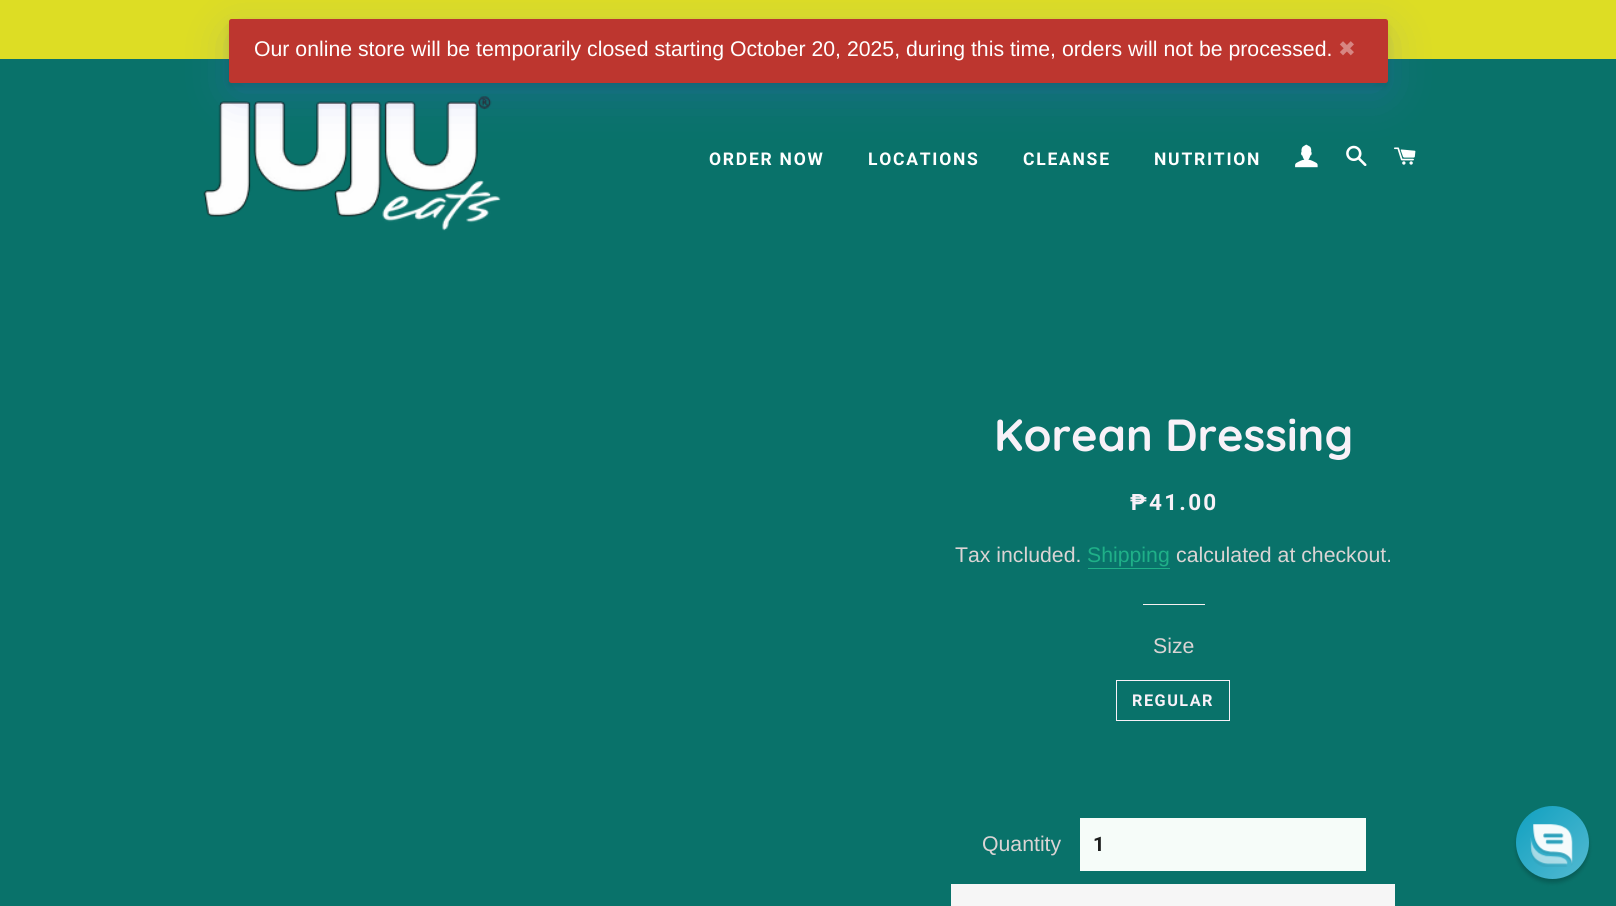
#include <cairo/cairo.h>
#include <math.h>
#include <stddef.h>

typedef struct { double x, y; const char *s; } line_t;
static cairo_t *cr;

static void rgb(unsigned color)
{
	cairo_set_source_rgb(cr, (color >> 16) / 255.0, (color >> 8 & 255) / 255.0, (color & 255) / 255.0);
}

static void tracked(double x, double y, const char *s, double letter, double word)
{
	cairo_move_to(cr, x, y);
	while (*s) {
		char ch[5] = {0};
		int n = 0;
		do ch[n++] = *s++; while ((*s & 0xC0) == 0x80);
		cairo_show_text(cr, ch);
		cairo_rel_move_to(cr, letter + word * (*ch == ' '), 0);
	}
}

static void rrect(double x, double y, double w, double h, double r)
{
	cairo_new_sub_path(cr);
	cairo_arc(cr, x + w - r, y + h - r, r, 0, M_PI / 2);
	cairo_arc(cr, x + r, y + h - r, r, M_PI / 2, M_PI);
	cairo_arc(cr, x + r, y + r, r, M_PI, 1.5 * M_PI);
	cairo_arc(cr, x + w - r, y + r, r, 1.5 * M_PI, 2 * M_PI);
	cairo_close_path(cr);
}

static void soft_shadow(double x, double y, double w, double h, double r, double blur, double alpha)
{
	cairo_push_group_with_content(cr, CAIRO_CONTENT_ALPHA);
	cairo_set_operator(cr, CAIRO_OPERATOR_SOURCE);
	for (int i = 15; i >= -15 && fmin(w, h) + blur * i / 3 > 0; i -= 2) {
		double e = blur * i / 6;
		cairo_set_source_rgba(cr, 0, 0, 0, alpha * erfc((i - 1) / 8.5) / 2);
		rrect(x - e, y - e, w + 2 * e, h + 2 * e, fmax(0, fmin(r + e + blur * .6, fmin(w, h) / 2 + e)));
		cairo_fill(cr);
	}
	cairo_pattern_t *soft = cairo_pop_group(cr);
	cairo_mask(cr, soft);
	cairo_pattern_destroy(soft);
}

static void image(const char *path, double x, double y, double w, double h)
{
	cairo_surface_t *image = cairo_image_surface_create_from_png(path);
	cairo_save(cr);
	cairo_set_source_surface(cr, image, x, y);
	cairo_rectangle(cr, x, y, w, h);
	cairo_fill(cr);
	cairo_restore(cr);
	cairo_surface_destroy(image);
}

int main(void) {
	cairo_surface_t *surface = cairo_image_surface_create(CAIRO_FORMAT_RGB24, 1616, 906);
	cr = cairo_create(surface);
	cairo_font_options_t *options = cairo_font_options_create();
	cairo_font_options_set_hint_metrics(options, CAIRO_HINT_METRICS_OFF);
	cairo_font_options_set_hint_style(options, CAIRO_HINT_STYLE_NONE);
	cairo_set_font_options(cr, options);
	cairo_set_miter_limit(cr, 4);
	cairo_pattern_t *gradient;
	rgb(0x09726a);
	cairo_paint(cr);
	rgb(0xdddd24);
	cairo_rectangle(cr, 0, 0, 1616, 59);
	cairo_fill(cr);
	image("img/1.png", 203, 96, 298, 135);
	image("img/2.png", 1295, 144, 23, 24);
	image("img/3.png", 1346, 145, 21, 21);
	image("img/4.png", 1394, 147, 22, 18);
	rgb(0x4d60e8);
	soft_shadow(234, 36, 1149, 54, 0, 22.5, 0.3);
	rgb(0x000000);
	soft_shadow(230, 24, 1156, 61, 1, 4, 0.12);
	rgb(0xbd362f);
	rrect(229, 19, 1159, 64, 2.5);
	cairo_fill(cr);
	rgb(0x1fb088);
	cairo_rectangle(cr, 1088, 568, 82, 1);
	cairo_fill(cr);
	rgb(0xf7f1f1);
	cairo_rectangle(cr, 1143, 604, 62, 1);
	cairo_fill(cr);
	cairo_rectangle(cr, 1116.5, 680.5, 113, 40);
	rgb(0xf8f1f8);
	cairo_set_line_width(cr, 1);
	cairo_stroke(cr);
	rgb(0xf6fcf9);
	cairo_rectangle(cr, 1080, 818, 286, 53);
	cairo_fill(cr);
	rgb(0xf6f6f6);
	cairo_rectangle(cr, 951, 884, 444, 22);
	cairo_fill(cr);
	rgb(0x000605);
	soft_shadow(1516, 810, 73, 73, 36.5, 2, 0.2);
	gradient = cairo_pattern_create_linear(1516, 806, 1589, 879);
	cairo_pattern_add_color_stop_rgba(gradient, 0, 0.063, 0.627, 0.753, 1);
	cairo_pattern_add_color_stop_rgba(gradient, 1, 0.329, 0.729, 0.82, 1);
	cairo_set_source(cr, gradient);
	cairo_pattern_destroy(gradient);
	cairo_arc(cr, 1552.5, 842.5, 36.5, 0, 2 * M_PI);
	cairo_fill(cr);
	image("img/5.png", 1530, 824, 43, 43);
	cairo_select_font_face(cr, "Liberation Sans", CAIRO_FONT_SLANT_NORMAL, CAIRO_FONT_WEIGHT_NORMAL);
	cairo_set_font_size(cr, 21.25);
	rgb(0xffffff);
	cairo_move_to(cr, 254, 56);
	cairo_show_text(cr, "Our online store will be temporarily closed starting October 20, 2025, during this time, orders will not be processed.");
	cairo_select_font_face(cr, "DejaVu Sans", CAIRO_FONT_SLANT_NORMAL, CAIRO_FONT_WEIGHT_NORMAL);
	rgb(0xd78682);
	cairo_move_to(cr, 1338, 56);
	cairo_show_text(cr, "✖");
	cairo_select_font_face(cr, "Roboto", CAIRO_FONT_SLANT_NORMAL, CAIRO_FONT_WEIGHT_BOLD);
	cairo_set_font_size(cr, 17.5);
	rgb(0xffffff);
	{
		static const line_t items[] = {
			{709, 165, "ORDER NOW"},
			{868, 165, "LOCATIONS"},
			{1023, 165, "CLEANSE"},
			{1154, 165, "NUTRITION"},
		};
		for (size_t i = 0; i < sizeof items / sizeof *items; i++) {
			tracked(items[i].x, items[i].y, items[i].s, 1.75, 0);
		}
	}
	cairo_select_font_face(cr, "Quicksand", CAIRO_FONT_SLANT_NORMAL, CAIRO_FONT_WEIGHT_BOLD);
	cairo_set_font_size(cr, 45);
	rgb(0xf8f1f8);
	cairo_move_to(cr, 994, 451);
	cairo_show_text(cr, "Korean Dressing");
	cairo_select_font_face(cr, "Roboto", CAIRO_FONT_SLANT_NORMAL, CAIRO_FONT_WEIGHT_BOLD);
	cairo_set_font_size(cr, 22.5);
	tracked(1130, 510, "₱41.00", 2.25, 0);
	cairo_select_font_face(cr, "Liberation Sans", CAIRO_FONT_SLANT_NORMAL, CAIRO_FONT_WEIGHT_NORMAL);
	cairo_set_font_size(cr, 21.25);
	rgb(0xdbd4d4);
	cairo_move_to(cr, 955, 562);
	cairo_show_text(cr, "Tax included.");
	rgb(0x1fb088);
	cairo_move_to(cr, 1087, 562);
	cairo_show_text(cr, "Shipping");
	rgb(0xdbd4d4);
	cairo_move_to(cr, 1176, 562);
	cairo_show_text(cr, "calculated at checkout.");
	cairo_move_to(cr, 1153, 653);
	cairo_show_text(cr, "Size");
	cairo_select_font_face(cr, "Roboto", CAIRO_FONT_SLANT_NORMAL, CAIRO_FONT_WEIGHT_BOLD);
	cairo_set_font_size(cr, 16.25);
	rgb(0xf8f1f8);
	tracked(1132, 706, "REGULAR", 1.5, 0);
	cairo_select_font_face(cr, "Liberation Sans", CAIRO_FONT_SLANT_NORMAL, CAIRO_FONT_WEIGHT_NORMAL);
	cairo_set_font_size(cr, 21.25);
	rgb(0xdbd4d4);
	cairo_move_to(cr, 982, 851);
	cairo_show_text(cr, "Quantity");
	cairo_select_font_face(cr, "Roboto", CAIRO_FONT_SLANT_NORMAL, CAIRO_FONT_WEIGHT_BOLD);
	cairo_set_font_size(cr, 20);
	rgb(0x1c1d1d);
	tracked(1093, 851, "1", 2, 0);
	cairo_surface_write_to_png(surface, "page.png");
	cairo_font_options_destroy(options);
	cairo_destroy(cr);
	cairo_surface_destroy(surface);
	return 0;
}
